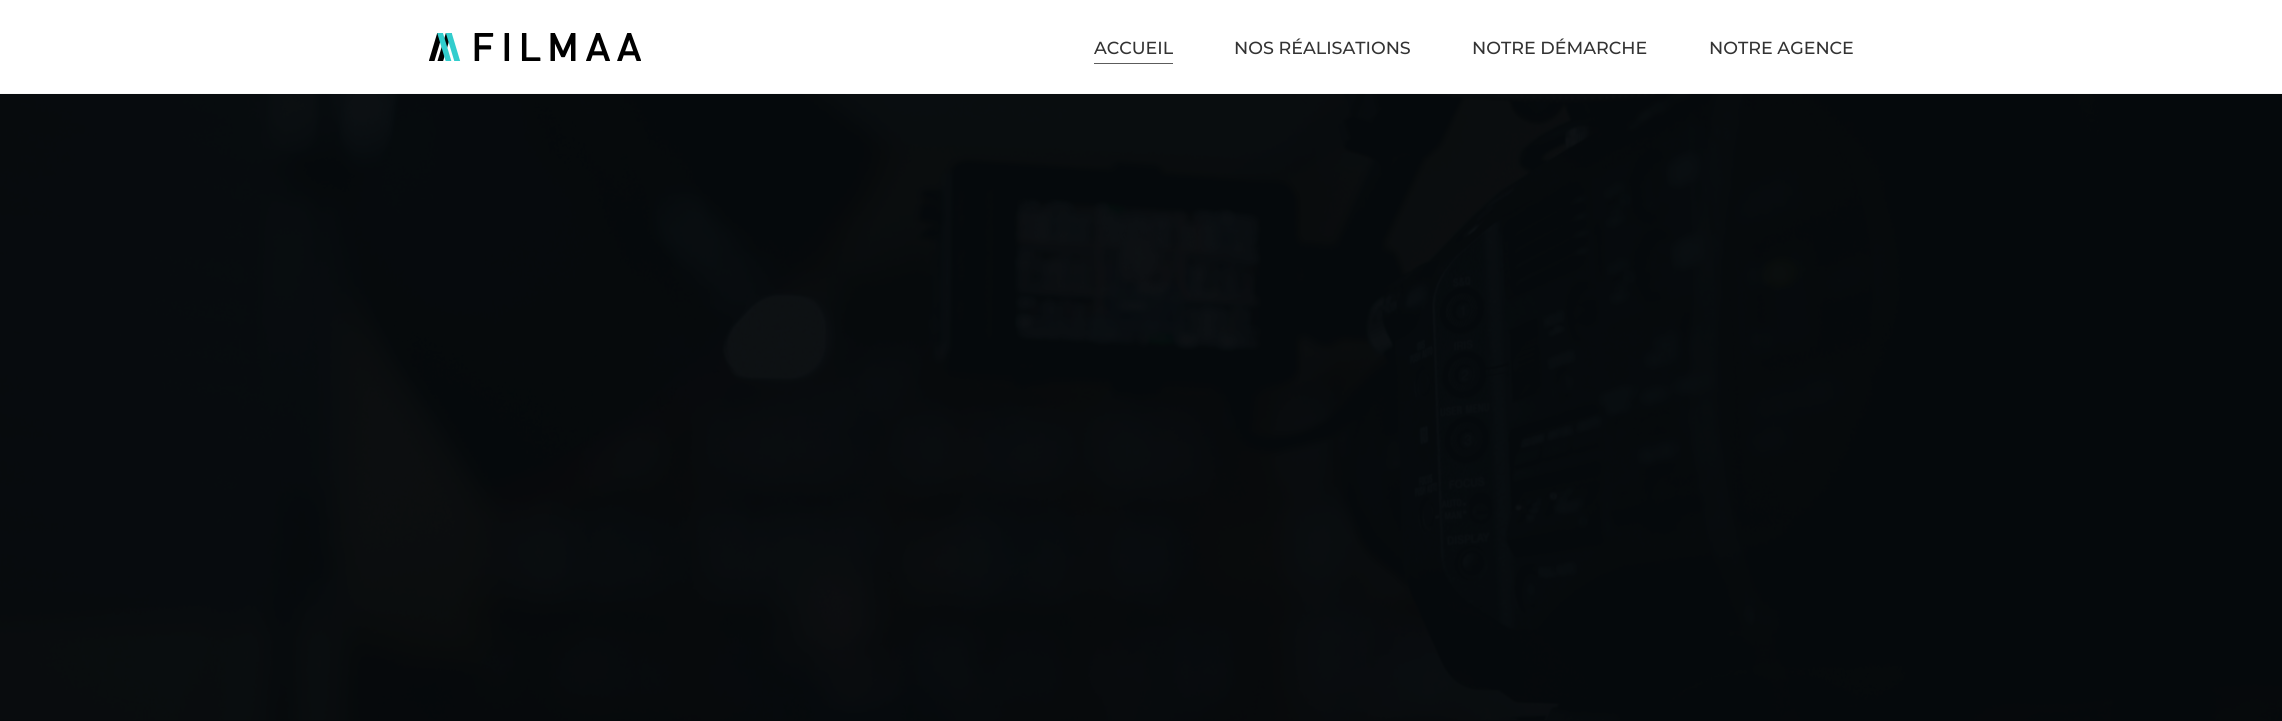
#include <cairo/cairo.h>
#include <math.h>
#include <stddef.h>

typedef struct { double x, y; const char *s; } line_t;
static cairo_t *cr;

static void rgb(unsigned color)
{
	cairo_set_source_rgb(cr, (color >> 16) / 255.0, (color >> 8 & 255) / 255.0, (color & 255) / 255.0);
}

static void image(const char *path, double x, double y, double w, double h)
{
	cairo_surface_t *image = cairo_image_surface_create_from_png(path);
	cairo_save(cr);
	cairo_set_source_surface(cr, image, x, y);
	cairo_rectangle(cr, x, y, w, h);
	cairo_fill(cr);
	cairo_restore(cr);
	cairo_surface_destroy(image);
}

int main(void) {
	cairo_surface_t *surface = cairo_image_surface_create(CAIRO_FORMAT_RGB24, 2282, 721);
	cr = cairo_create(surface);
	cairo_font_options_t *options = cairo_font_options_create();
	cairo_font_options_set_hint_metrics(options, CAIRO_HINT_METRICS_OFF);
	cairo_font_options_set_hint_style(options, CAIRO_HINT_STYLE_NONE);
	cairo_set_font_options(cr, options);
	cairo_set_miter_limit(cr, 4);
	rgb(0xffffff);
	cairo_paint(cr);
	image("img/1.png", 429, 33, 212, 28);
	rgb(0x5c5c5c);
	cairo_rectangle(cr, 1094, 63, 79, 1);
	cairo_fill(cr);
	rgb(0x05090c);
	cairo_rectangle(cr, 0, 94, 2282, 627);
	cairo_fill(cr);
	image("img/2.png", 0, 93, 2282, 627);
	cairo_select_font_face(cr, "Montserrat Medium", CAIRO_FONT_SLANT_NORMAL, CAIRO_FONT_WEIGHT_NORMAL);
	cairo_set_font_size(cr, 17.5);
	rgb(0x333333);
	{
		static const line_t items[] = {
			{1094, 54, "ACCUEIL"},
			{1234, 54, "NOS RÉALISATIONS"},
			{1472, 54, "NOTRE DÉMARCHE"},
			{1709, 54, "NOTRE AGENCE"},
		};
		for (size_t i = 0; i < sizeof items / sizeof *items; i++) {
			cairo_move_to(cr, items[i].x, items[i].y);
			cairo_show_text(cr, items[i].s);
		}
	}
	cairo_surface_write_to_png(surface, "page.png");
	cairo_font_options_destroy(options);
	cairo_destroy(cr);
	cairo_surface_destroy(surface);
	return 0;
}
